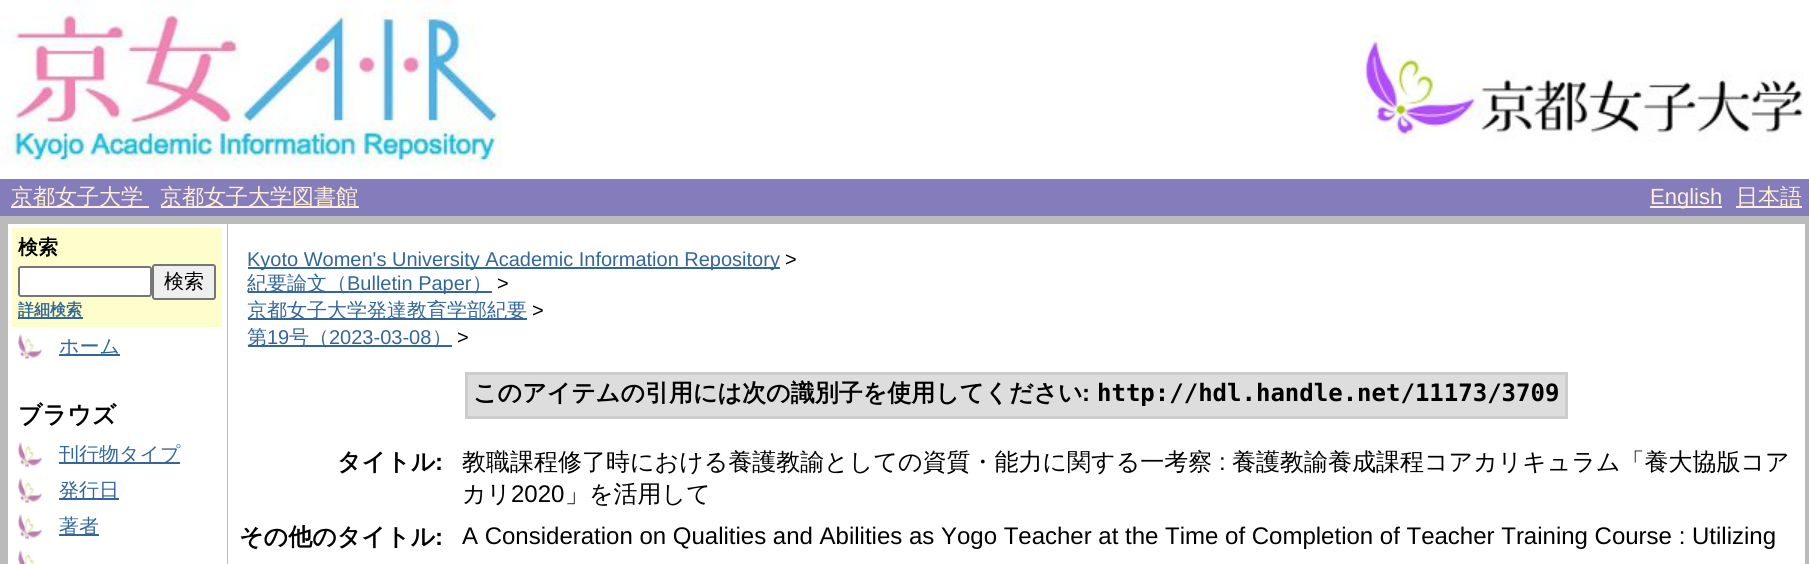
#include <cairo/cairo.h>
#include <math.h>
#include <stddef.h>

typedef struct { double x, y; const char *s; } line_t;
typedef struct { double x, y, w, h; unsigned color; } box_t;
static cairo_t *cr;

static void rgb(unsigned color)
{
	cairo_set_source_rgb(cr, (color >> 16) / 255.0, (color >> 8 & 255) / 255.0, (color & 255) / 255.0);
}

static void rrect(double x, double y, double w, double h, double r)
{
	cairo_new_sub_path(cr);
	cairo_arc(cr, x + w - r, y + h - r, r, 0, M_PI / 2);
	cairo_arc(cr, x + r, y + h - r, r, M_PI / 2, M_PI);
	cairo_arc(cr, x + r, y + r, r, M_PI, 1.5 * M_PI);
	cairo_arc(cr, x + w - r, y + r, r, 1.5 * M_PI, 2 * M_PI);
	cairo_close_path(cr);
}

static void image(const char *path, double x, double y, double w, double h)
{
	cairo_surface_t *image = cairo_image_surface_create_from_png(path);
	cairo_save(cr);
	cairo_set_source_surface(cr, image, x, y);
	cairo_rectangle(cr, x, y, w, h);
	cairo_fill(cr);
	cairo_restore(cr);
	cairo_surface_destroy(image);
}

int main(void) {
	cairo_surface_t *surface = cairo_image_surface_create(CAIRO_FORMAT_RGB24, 1809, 564);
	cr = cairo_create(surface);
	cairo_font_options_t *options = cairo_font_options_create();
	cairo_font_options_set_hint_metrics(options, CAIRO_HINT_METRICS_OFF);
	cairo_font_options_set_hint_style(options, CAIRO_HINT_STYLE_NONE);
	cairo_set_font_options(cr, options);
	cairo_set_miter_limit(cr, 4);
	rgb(0xbbbbbb);
	cairo_paint(cr);
	rgb(0xffffff);
	cairo_rectangle(cr, 0, 0, 1809, 179);
	cairo_fill(cr);
	image("img/1.png", 0, 0, 501, 169);
	image("img/2.png", 1360, 34, 444, 109);
	{
		static const box_t items[] = {
			{0, 179, 1809, 37, 0x857cbb},
			{11, 206, 138, 2, 0xffefd5},
			{161, 206, 198, 2, 0xffefd5},
			{1650, 206, 72, 2, 0xffefd5},
			{1736, 206, 66, 2, 0xffefd5},
			{8, 224, 219, 340, 0xffffff},
			{12, 228, 210, 99, 0xfefecd},
		};
		for (size_t i = 0; i < sizeof items / sizeof *items; i++) {
			rgb(items[i].color);
			cairo_rectangle(cr, items[i].x, items[i].y, items[i].w, items[i].h);
			cairo_fill(cr);
		}
	}
	rgb(0xffffff);
	rrect(19, 267, 132, 29, 2);
	cairo_fill_preserve(cr);
	rgb(0x767676);
	cairo_stroke(cr);
	rgb(0xefefef);
	rrect(153, 265, 62, 34, 2);
	cairo_fill_preserve(cr);
	rgb(0x767676);
	cairo_stroke(cr);
	rgb(0x336699);
	cairo_rectangle(cr, 18, 317, 65, 2);
	cairo_fill(cr);
	image("img/3.png", 18, 334, 24, 25);
	cairo_rectangle(cr, 59, 354, 61, 2);
	cairo_fill(cr);
	image("img/4.png", 18, 442, 24, 25);
	cairo_rectangle(cr, 59, 462, 121, 2);
	cairo_fill(cr);
	image("img/4.png", 18, 478, 24, 25);
	cairo_rectangle(cr, 59, 498, 60, 2);
	cairo_fill(cr);
	image("img/5.png", 18, 514, 24, 25);
	cairo_rectangle(cr, 59, 534, 40, 2);
	cairo_fill(cr);
	image("img/6.png", 18, 550, 16, 14);
	{
		static const box_t items[] = {
			{228, 224, 1577, 340, 0xffffff},
			{248, 267, 532, 2, 0x336699},
			{248, 291, 244, 2, 0x336699},
			{248, 318, 279, 2, 0x336699},
			{248, 345, 204, 2, 0x336699},
			{465, 372, 1103, 47, 0xcccccc},
			{468, 375, 1097, 41, 0xdddddd},
		};
		for (size_t i = 0; i < sizeof items / sizeof *items; i++) {
			rgb(items[i].color);
			cairo_rectangle(cr, items[i].x, items[i].y, items[i].w, items[i].h);
			cairo_fill(cr);
		}
	}
	cairo_select_font_face(cr, "WenQuanYi Zen Hei Medium", CAIRO_FONT_SLANT_NORMAL, CAIRO_FONT_WEIGHT_NORMAL);
	cairo_set_font_size(cr, 22);
	rgb(0xffefd5);
	cairo_move_to(cr, 11, 204);
	cairo_show_text(cr, "京都女子大学");
	cairo_move_to(cr, 160, 204);
	cairo_show_text(cr, "京都女子大学図書館");
	cairo_select_font_face(cr, "Liberation Sans", CAIRO_FONT_SLANT_NORMAL, CAIRO_FONT_WEIGHT_NORMAL);
	cairo_move_to(cr, 1650, 204);
	cairo_show_text(cr, "English");
	cairo_select_font_face(cr, "WenQuanYi Zen Hei Medium", CAIRO_FONT_SLANT_NORMAL, CAIRO_FONT_WEIGHT_NORMAL);
	cairo_move_to(cr, 1736, 204);
	cairo_show_text(cr, "日本語");
	cairo_select_font_face(cr, "WenQuanYi Zen Hei", CAIRO_FONT_SLANT_NORMAL, CAIRO_FONT_WEIGHT_BOLD);
	cairo_set_font_size(cr, 20);
	rgb(0x000000);
	cairo_move_to(cr, 18, 254);
	cairo_show_text(cr, "検索");
	cairo_select_font_face(cr, "WenQuanYi Zen Hei Medium", CAIRO_FONT_SLANT_NORMAL, CAIRO_FONT_WEIGHT_NORMAL);
	cairo_move_to(cr, 164, 288);
	cairo_show_text(cr, "検索");
	cairo_select_font_face(cr, "WenQuanYi Zen Hei", CAIRO_FONT_SLANT_NORMAL, CAIRO_FONT_WEIGHT_BOLD);
	cairo_set_font_size(cr, 16);
	rgb(0x336699);
	cairo_move_to(cr, 18, 315);
	cairo_show_text(cr, "詳細検索");
	cairo_select_font_face(cr, "WenQuanYi Zen Hei Medium", CAIRO_FONT_SLANT_NORMAL, CAIRO_FONT_WEIGHT_NORMAL);
	cairo_set_font_size(cr, 20);
	cairo_move_to(cr, 59, 353);
	cairo_show_text(cr, "ホーム");
	cairo_select_font_face(cr, "WenQuanYi Zen Hei", CAIRO_FONT_SLANT_NORMAL, CAIRO_FONT_WEIGHT_BOLD);
	cairo_set_font_size(cr, 24);
	rgb(0x000000);
	cairo_move_to(cr, 18, 423);
	cairo_show_text(cr, "ブラウズ");
	cairo_select_font_face(cr, "WenQuanYi Zen Hei Medium", CAIRO_FONT_SLANT_NORMAL, CAIRO_FONT_WEIGHT_NORMAL);
	cairo_set_font_size(cr, 20);
	rgb(0x336699);
	{
		static const line_t items[] = {
			{59, 461, "刊行物タイプ"},
			{59, 497, "発行日"},
			{59, 533, "著者"},
		};
		for (size_t i = 0; i < sizeof items / sizeof *items; i++) {
			cairo_move_to(cr, items[i].x, items[i].y);
			cairo_show_text(cr, items[i].s);
		}
	}
	cairo_select_font_face(cr, "Liberation Sans", CAIRO_FONT_SLANT_NORMAL, CAIRO_FONT_WEIGHT_NORMAL);
	cairo_move_to(cr, 247, 266);
	cairo_show_text(cr, "Kyoto Women's University Academic Information Repository");
	rgb(0x000000);
	cairo_move_to(cr, 785, 266);
	cairo_show_text(cr, ">");
	cairo_select_font_face(cr, "WenQuanYi Zen Hei Medium", CAIRO_FONT_SLANT_NORMAL, CAIRO_FONT_WEIGHT_NORMAL);
	rgb(0x336699);
	cairo_move_to(cr, 247, 290);
	cairo_show_text(cr, "紀要論文（");
	cairo_select_font_face(cr, "Liberation Sans", CAIRO_FONT_SLANT_NORMAL, CAIRO_FONT_WEIGHT_NORMAL);
	cairo_move_to(cr, 347, 290);
	cairo_show_text(cr, "Bulletin Paper");
	cairo_select_font_face(cr, "WenQuanYi Zen Hei Medium", CAIRO_FONT_SLANT_NORMAL, CAIRO_FONT_WEIGHT_NORMAL);
	cairo_move_to(cr, 472, 290);
	cairo_show_text(cr, "）");
	cairo_select_font_face(cr, "Liberation Sans", CAIRO_FONT_SLANT_NORMAL, CAIRO_FONT_WEIGHT_NORMAL);
	rgb(0x000000);
	cairo_move_to(cr, 497, 290);
	cairo_show_text(cr, ">");
	cairo_select_font_face(cr, "WenQuanYi Zen Hei Medium", CAIRO_FONT_SLANT_NORMAL, CAIRO_FONT_WEIGHT_NORMAL);
	rgb(0x336699);
	cairo_move_to(cr, 247, 317);
	cairo_show_text(cr, "京都女子大学発達教育学部紀要");
	cairo_select_font_face(cr, "Liberation Sans", CAIRO_FONT_SLANT_NORMAL, CAIRO_FONT_WEIGHT_NORMAL);
	rgb(0x000000);
	cairo_move_to(cr, 532, 317);
	cairo_show_text(cr, ">");
	cairo_select_font_face(cr, "WenQuanYi Zen Hei Medium", CAIRO_FONT_SLANT_NORMAL, CAIRO_FONT_WEIGHT_NORMAL);
	rgb(0x336699);
	cairo_move_to(cr, 247, 344);
	cairo_show_text(cr, "第");
	cairo_select_font_face(cr, "Liberation Sans", CAIRO_FONT_SLANT_NORMAL, CAIRO_FONT_WEIGHT_NORMAL);
	cairo_move_to(cr, 267, 344);
	cairo_show_text(cr, "19");
	cairo_select_font_face(cr, "WenQuanYi Zen Hei Medium", CAIRO_FONT_SLANT_NORMAL, CAIRO_FONT_WEIGHT_NORMAL);
	cairo_move_to(cr, 289, 344);
	cairo_show_text(cr, "号（");
	cairo_select_font_face(cr, "Liberation Sans", CAIRO_FONT_SLANT_NORMAL, CAIRO_FONT_WEIGHT_NORMAL);
	cairo_move_to(cr, 329, 344);
	cairo_show_text(cr, "2023-03-08");
	cairo_select_font_face(cr, "WenQuanYi Zen Hei Medium", CAIRO_FONT_SLANT_NORMAL, CAIRO_FONT_WEIGHT_NORMAL);
	cairo_move_to(cr, 432, 344);
	cairo_show_text(cr, "）");
	cairo_select_font_face(cr, "Liberation Sans", CAIRO_FONT_SLANT_NORMAL, CAIRO_FONT_WEIGHT_NORMAL);
	rgb(0x000000);
	cairo_move_to(cr, 457, 344);
	cairo_show_text(cr, ">");
	cairo_select_font_face(cr, "WenQuanYi Zen Hei", CAIRO_FONT_SLANT_NORMAL, CAIRO_FONT_WEIGHT_BOLD);
	cairo_set_font_size(cr, 24);
	cairo_move_to(cr, 473, 401);
	cairo_show_text(cr, "このアイテムの引用には次の識別子を使用してください");
	cairo_select_font_face(cr, "Liberation Sans", CAIRO_FONT_SLANT_NORMAL, CAIRO_FONT_WEIGHT_BOLD);
	cairo_move_to(cr, 1082, 401);
	cairo_show_text(cr, ":");
	cairo_select_font_face(cr, "DejaVu Sans Mono", CAIRO_FONT_SLANT_NORMAL, CAIRO_FONT_WEIGHT_BOLD);
	cairo_move_to(cr, 1097, 401);
	cairo_show_text(cr, "http://hdl.handle.net/11173/3709");
	cairo_select_font_face(cr, "WenQuanYi Zen Hei", CAIRO_FONT_SLANT_NORMAL, CAIRO_FONT_WEIGHT_BOLD);
	cairo_move_to(cr, 337, 470);
	cairo_show_text(cr, "タイトル");
	cairo_select_font_face(cr, "Liberation Sans", CAIRO_FONT_SLANT_NORMAL, CAIRO_FONT_WEIGHT_BOLD);
	cairo_move_to(cr, 435, 470);
	cairo_show_text(cr, ":");
	cairo_select_font_face(cr, "WenQuanYi Zen Hei Medium", CAIRO_FONT_SLANT_NORMAL, CAIRO_FONT_WEIGHT_NORMAL);
	cairo_move_to(cr, 462, 470);
	cairo_show_text(cr, "教職課程修了時における養護教諭としての資質・能力に関する一考察");
	cairo_select_font_face(cr, "Liberation Sans", CAIRO_FONT_SLANT_NORMAL, CAIRO_FONT_WEIGHT_NORMAL);
	cairo_move_to(cr, 1219, 470);
	cairo_show_text(cr, ":");
	cairo_select_font_face(cr, "WenQuanYi Zen Hei Medium", CAIRO_FONT_SLANT_NORMAL, CAIRO_FONT_WEIGHT_NORMAL);
	cairo_move_to(cr, 1232, 470);
	cairo_show_text(cr, "養護教諭養成課程コアカリキュラム「養大協版コア");
	cairo_move_to(cr, 462, 502);
	cairo_show_text(cr, "カリ");
	cairo_select_font_face(cr, "Liberation Sans", CAIRO_FONT_SLANT_NORMAL, CAIRO_FONT_WEIGHT_NORMAL);
	cairo_move_to(cr, 511, 502);
	cairo_show_text(cr, "2020");
	cairo_select_font_face(cr, "WenQuanYi Zen Hei Medium", CAIRO_FONT_SLANT_NORMAL, CAIRO_FONT_WEIGHT_NORMAL);
	cairo_move_to(cr, 565, 502);
	cairo_show_text(cr, "」を活用して");
	cairo_select_font_face(cr, "WenQuanYi Zen Hei", CAIRO_FONT_SLANT_NORMAL, CAIRO_FONT_WEIGHT_BOLD);
	cairo_move_to(cr, 239, 545);
	cairo_show_text(cr, "その他のタイトル");
	cairo_select_font_face(cr, "Liberation Sans", CAIRO_FONT_SLANT_NORMAL, CAIRO_FONT_WEIGHT_BOLD);
	cairo_move_to(cr, 435, 545);
	cairo_show_text(cr, ":");
	cairo_select_font_face(cr, "Liberation Sans", CAIRO_FONT_SLANT_NORMAL, CAIRO_FONT_WEIGHT_NORMAL);
	cairo_move_to(cr, 462, 544);
	cairo_show_text(cr, "A Consideration on Qualities and Abilities as Yogo Teacher at the Time of Completion of Teacher Training Course : Utilizing");
	cairo_surface_write_to_png(surface, "page.png");
	cairo_font_options_destroy(options);
	cairo_destroy(cr);
	cairo_surface_destroy(surface);
	return 0;
}
